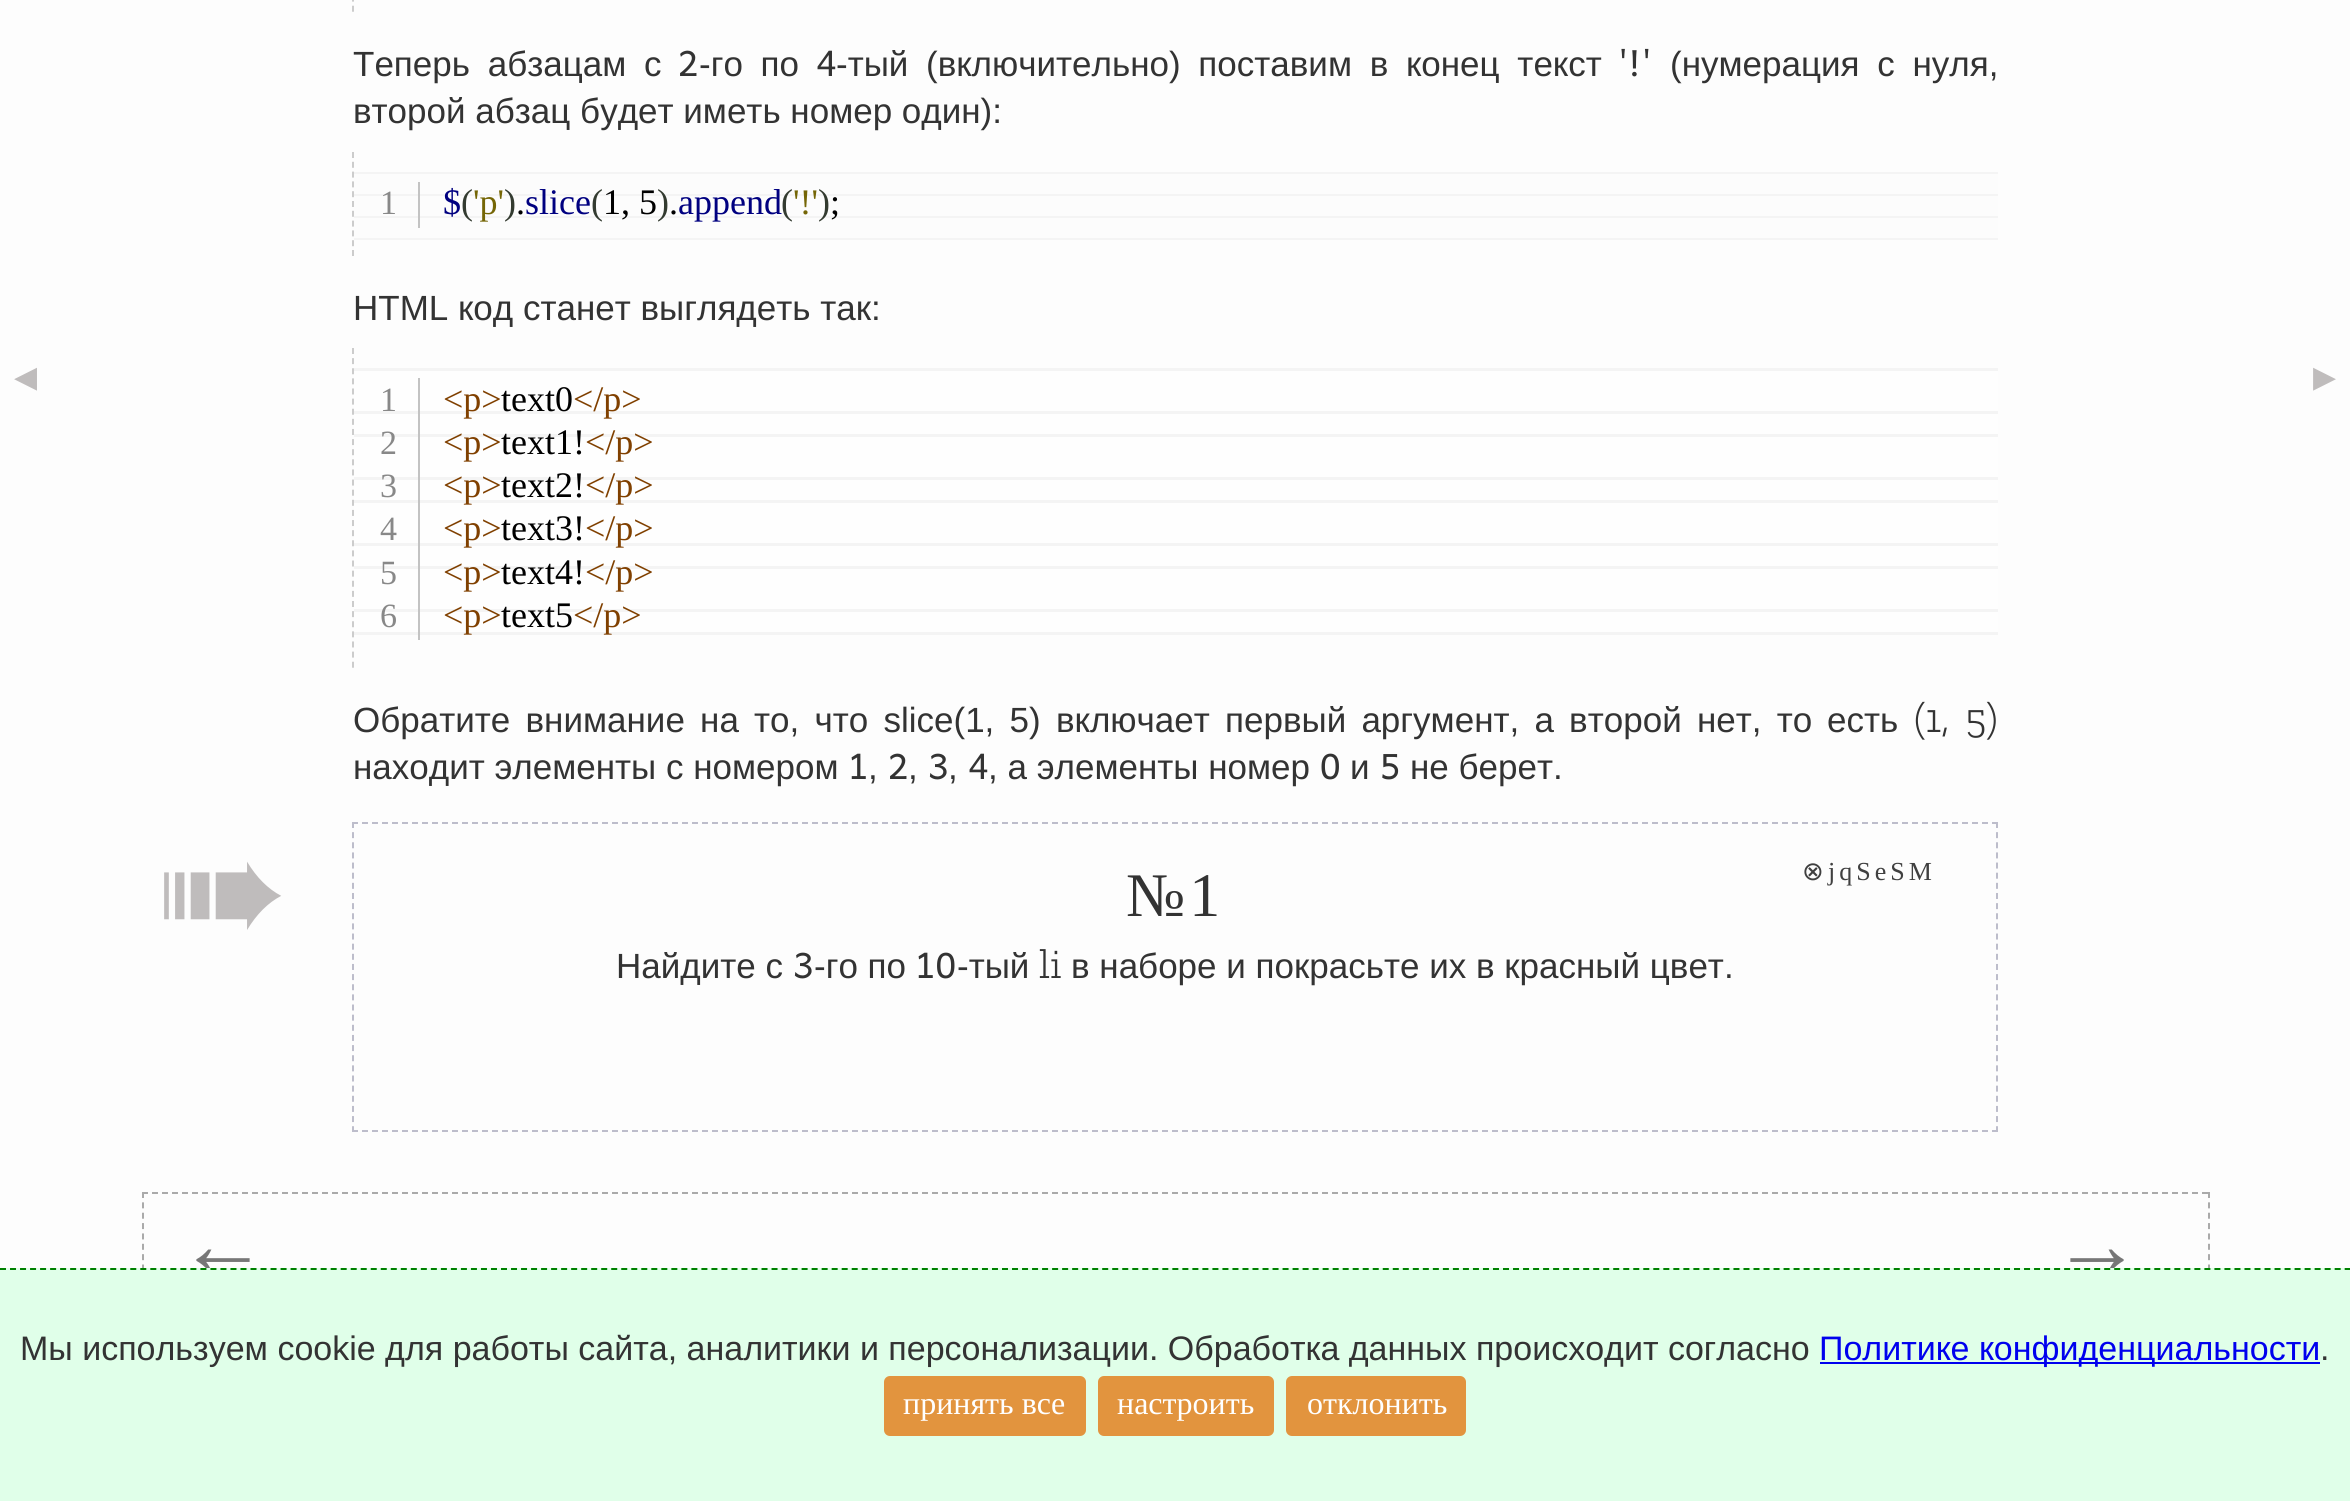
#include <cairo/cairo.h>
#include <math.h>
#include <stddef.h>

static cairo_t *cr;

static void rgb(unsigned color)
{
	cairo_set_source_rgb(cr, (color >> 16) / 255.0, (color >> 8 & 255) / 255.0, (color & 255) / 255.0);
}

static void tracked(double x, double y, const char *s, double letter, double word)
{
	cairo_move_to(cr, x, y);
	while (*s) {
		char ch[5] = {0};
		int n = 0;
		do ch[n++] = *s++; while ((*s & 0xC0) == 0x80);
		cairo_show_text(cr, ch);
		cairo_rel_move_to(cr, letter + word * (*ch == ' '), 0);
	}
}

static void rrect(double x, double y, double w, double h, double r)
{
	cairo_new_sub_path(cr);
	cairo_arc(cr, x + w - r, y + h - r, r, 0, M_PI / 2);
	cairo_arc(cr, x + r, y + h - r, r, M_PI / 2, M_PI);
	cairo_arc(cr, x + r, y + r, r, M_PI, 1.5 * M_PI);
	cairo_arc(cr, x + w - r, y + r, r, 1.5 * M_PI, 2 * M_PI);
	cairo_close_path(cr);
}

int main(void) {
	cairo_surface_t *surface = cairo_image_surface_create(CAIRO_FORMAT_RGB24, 2350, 1501);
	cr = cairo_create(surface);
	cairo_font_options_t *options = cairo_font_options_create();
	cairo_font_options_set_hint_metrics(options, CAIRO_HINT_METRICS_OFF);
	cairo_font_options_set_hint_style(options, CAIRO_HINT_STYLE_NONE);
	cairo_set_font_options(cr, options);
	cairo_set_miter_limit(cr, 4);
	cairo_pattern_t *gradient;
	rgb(0xfdfdfd);
	cairo_paint(cr);
	cairo_new_path(cr);
	cairo_move_to(cr, 353, -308);
	cairo_line_to(cr, 353, 12);
	rgb(0xcccccc);
	cairo_set_dash(cr, (double[]){6, 4.12}, 2, 0);
	cairo_stroke(cr);
	gradient = cairo_pattern_create_linear(1176, 152, 1176, 262);
	cairo_pattern_add_color_stop_rgba(gradient, 0, 0.988, 0.988, 0.988, 1);
	cairo_pattern_add_color_stop_rgba(gradient, 0.18, 0.988, 0.988, 0.988, 1);
	cairo_pattern_add_color_stop_rgba(gradient, 0.18, 0.957, 0.957, 0.957, 1);
	cairo_pattern_add_color_stop_rgba(gradient, 0.2, 0.957, 0.957, 0.957, 1);
	cairo_pattern_add_color_stop_rgba(gradient, 0.2, 0.988, 0.988, 0.988, 1);
	cairo_pattern_add_color_stop_rgba(gradient, 0.38, 0.988, 0.988, 0.988, 1);
	cairo_pattern_add_color_stop_rgba(gradient, 0.38, 0.957, 0.957, 0.957, 1);
	cairo_pattern_add_color_stop_rgba(gradient, 0.4, 0.957, 0.957, 0.957, 1);
	cairo_pattern_add_color_stop_rgba(gradient, 0.4, 0.988, 0.988, 0.988, 1);
	cairo_pattern_add_color_stop_rgba(gradient, 0.58, 0.988, 0.988, 0.988, 1);
	cairo_pattern_add_color_stop_rgba(gradient, 0.58, 0.957, 0.957, 0.957, 1);
	cairo_pattern_add_color_stop_rgba(gradient, 0.6, 0.957, 0.957, 0.957, 1);
	cairo_pattern_add_color_stop_rgba(gradient, 0.6, 0.988, 0.988, 0.988, 1);
	cairo_pattern_add_color_stop_rgba(gradient, 0.78, 0.988, 0.988, 0.988, 1);
	cairo_pattern_add_color_stop_rgba(gradient, 0.78, 0.957, 0.957, 0.957, 1);
	cairo_pattern_add_color_stop_rgba(gradient, 0.8, 0.957, 0.957, 0.957, 1);
	cairo_pattern_add_color_stop_rgba(gradient, 0.8, 0.988, 0.988, 0.988, 1);
	cairo_pattern_add_color_stop_rgba(gradient, 0.98, 0.988, 0.988, 0.988, 1);
	cairo_pattern_add_color_stop_rgba(gradient, 0.98, 0.957, 0.957, 0.957, 1);
	cairo_pattern_add_color_stop_rgba(gradient, 1, 0.957, 0.957, 0.957, 1);
	cairo_set_source(cr, gradient);
	cairo_pattern_destroy(gradient);
	cairo_rectangle(cr, 354, 172, 1644, 68);
	cairo_fill(cr);
	cairo_new_path(cr);
	cairo_move_to(cr, 353, 152);
	cairo_line_to(cr, 353, 256);
	rgb(0xcccccc);
	cairo_set_dash(cr, (double[]){6, 3.8}, 2, 0);
	cairo_stroke(cr);
	rgb(0xc3c3c3);
	cairo_rectangle(cr, 418, 182, 2, 46);
	cairo_fill(cr);
	gradient = cairo_pattern_create_linear(1176, 348, 1176, 678);
	cairo_pattern_add_color_stop_rgba(gradient, 0, 0.996, 0.996, 0.996, 1);
	cairo_pattern_add_color_stop_rgba(gradient, 0.06, 0.996, 0.996, 0.996, 1);
	cairo_pattern_add_color_stop_rgba(gradient, 0.06, 0.957, 0.957, 0.957, 1);
	cairo_pattern_add_color_stop_rgba(gradient, 0.07, 0.957, 0.957, 0.957, 1);
	cairo_pattern_add_color_stop_rgba(gradient, 0.07, 0.996, 0.996, 0.996, 1);
	cairo_pattern_add_color_stop_rgba(gradient, 0.13, 0.996, 0.996, 0.996, 1);
	cairo_pattern_add_color_stop_rgba(gradient, 0.13, 0.957, 0.957, 0.957, 1);
	cairo_pattern_add_color_stop_rgba(gradient, 0.13, 0.996, 0.996, 0.996, 1);
	cairo_pattern_add_color_stop_rgba(gradient, 0.19, 0.996, 0.996, 0.996, 1);
	cairo_pattern_add_color_stop_rgba(gradient, 0.19, 0.957, 0.957, 0.957, 1);
	cairo_pattern_add_color_stop_rgba(gradient, 0.2, 0.957, 0.957, 0.957, 1);
	cairo_pattern_add_color_stop_rgba(gradient, 0.2, 0.996, 0.996, 0.996, 1);
	cairo_pattern_add_color_stop_rgba(gradient, 0.26, 0.996, 0.996, 0.996, 1);
	cairo_pattern_add_color_stop_rgba(gradient, 0.26, 0.957, 0.957, 0.957, 1);
	cairo_pattern_add_color_stop_rgba(gradient, 0.27, 0.957, 0.957, 0.957, 1);
	cairo_pattern_add_color_stop_rgba(gradient, 0.27, 0.996, 0.996, 0.996, 1);
	cairo_pattern_add_color_stop_rgba(gradient, 0.33, 0.996, 0.996, 0.996, 1);
	cairo_pattern_add_color_stop_rgba(gradient, 0.33, 0.957, 0.957, 0.957, 1);
	cairo_pattern_add_color_stop_rgba(gradient, 0.33, 0.996, 0.996, 0.996, 1);
	cairo_pattern_add_color_stop_rgba(gradient, 0.39, 0.996, 0.996, 0.996, 1);
	cairo_pattern_add_color_stop_rgba(gradient, 0.39, 0.957, 0.957, 0.957, 1);
	cairo_pattern_add_color_stop_rgba(gradient, 0.4, 0.957, 0.957, 0.957, 1);
	cairo_pattern_add_color_stop_rgba(gradient, 0.4, 0.996, 0.996, 0.996, 1);
	cairo_pattern_add_color_stop_rgba(gradient, 0.46, 0.996, 0.996, 0.996, 1);
	cairo_pattern_add_color_stop_rgba(gradient, 0.46, 0.957, 0.957, 0.957, 1);
	cairo_pattern_add_color_stop_rgba(gradient, 0.47, 0.957, 0.957, 0.957, 1);
	cairo_pattern_add_color_stop_rgba(gradient, 0.47, 0.996, 0.996, 0.996, 1);
	cairo_pattern_add_color_stop_rgba(gradient, 0.53, 0.996, 0.996, 0.996, 1);
	cairo_pattern_add_color_stop_rgba(gradient, 0.53, 0.957, 0.957, 0.957, 1);
	cairo_pattern_add_color_stop_rgba(gradient, 0.53, 0.996, 0.996, 0.996, 1);
	cairo_pattern_add_color_stop_rgba(gradient, 0.59, 0.996, 0.996, 0.996, 1);
	cairo_pattern_add_color_stop_rgba(gradient, 0.59, 0.957, 0.957, 0.957, 1);
	cairo_pattern_add_color_stop_rgba(gradient, 0.6, 0.957, 0.957, 0.957, 1);
	cairo_pattern_add_color_stop_rgba(gradient, 0.6, 0.996, 0.996, 0.996, 1);
	cairo_pattern_add_color_stop_rgba(gradient, 0.66, 0.996, 0.996, 0.996, 1);
	cairo_pattern_add_color_stop_rgba(gradient, 0.66, 0.957, 0.957, 0.957, 1);
	cairo_pattern_add_color_stop_rgba(gradient, 0.67, 0.957, 0.957, 0.957, 1);
	cairo_pattern_add_color_stop_rgba(gradient, 0.67, 0.996, 0.996, 0.996, 1);
	cairo_pattern_add_color_stop_rgba(gradient, 0.73, 0.996, 0.996, 0.996, 1);
	cairo_pattern_add_color_stop_rgba(gradient, 0.73, 0.957, 0.957, 0.957, 1);
	cairo_pattern_add_color_stop_rgba(gradient, 0.73, 0.996, 0.996, 0.996, 1);
	cairo_pattern_add_color_stop_rgba(gradient, 0.79, 0.996, 0.996, 0.996, 1);
	cairo_pattern_add_color_stop_rgba(gradient, 0.79, 0.957, 0.957, 0.957, 1);
	cairo_pattern_add_color_stop_rgba(gradient, 0.8, 0.957, 0.957, 0.957, 1);
	cairo_pattern_add_color_stop_rgba(gradient, 0.8, 0.996, 0.996, 0.996, 1);
	cairo_pattern_add_color_stop_rgba(gradient, 0.86, 0.996, 0.996, 0.996, 1);
	cairo_pattern_add_color_stop_rgba(gradient, 0.86, 0.957, 0.957, 0.957, 1);
	cairo_pattern_add_color_stop_rgba(gradient, 0.87, 0.957, 0.957, 0.957, 1);
	cairo_pattern_add_color_stop_rgba(gradient, 0.87, 0.996, 0.996, 0.996, 1);
	cairo_pattern_add_color_stop_rgba(gradient, 0.93, 0.996, 0.996, 0.996, 1);
	cairo_pattern_add_color_stop_rgba(gradient, 0.93, 0.957, 0.957, 0.957, 1);
	cairo_pattern_add_color_stop_rgba(gradient, 0.93, 0.996, 0.996, 0.996, 1);
	cairo_pattern_add_color_stop_rgba(gradient, 0.99, 0.996, 0.996, 0.996, 1);
	cairo_pattern_add_color_stop_rgba(gradient, 0.99, 0.957, 0.957, 0.957, 1);
	cairo_pattern_add_color_stop_rgba(gradient, 1, 0.957, 0.957, 0.957, 1);
	cairo_set_source(cr, gradient);
	cairo_pattern_destroy(gradient);
	cairo_rectangle(cr, 354, 368, 1644, 267);
	cairo_fill(cr);
	cairo_new_path(cr);
	cairo_move_to(cr, 353, 348);
	cairo_line_to(cr, 353, 668);
	rgb(0xcccccc);
	cairo_set_dash(cr, (double[]){6, 4.12}, 2, 0);
	cairo_stroke(cr);
	rgb(0xc3c3c3);
	cairo_rectangle(cr, 418, 378, 2, 262);
	cairo_fill(cr);
	cairo_new_path(cr);
	cairo_move_to(cr, 352, 823);
	cairo_line_to(cr, 1998, 823);
	rgb(0xbdbdcb);
	cairo_set_dash(cr, (double[]){6, 4}, 2, 0);
	cairo_stroke(cr);
	cairo_new_path(cr);
	cairo_move_to(cr, 1997, 822);
	cairo_line_to(cr, 1997, 1132);
	cairo_set_dash(cr, (double[]){6, 4.14}, 2, 0);
	cairo_stroke(cr);
	cairo_new_path(cr);
	cairo_move_to(cr, 352, 1131);
	cairo_line_to(cr, 1998, 1131);
	cairo_set_dash(cr, (double[]){6, 4}, 2, 0);
	cairo_stroke(cr);
	cairo_new_path(cr);
	cairo_move_to(cr, 353, 822);
	cairo_line_to(cr, 353, 1132);
	cairo_set_dash(cr, (double[]){6, 4.14}, 2, 0);
	cairo_stroke(cr);
	cairo_new_path(cr);
	cairo_move_to(cr, 142, 1193);
	cairo_line_to(cr, 2210, 1193);
	rgb(0xaaaaaa);
	cairo_set_dash(cr, (double[]){6, 4}, 2, 0);
	cairo_stroke(cr);
	cairo_new_path(cr);
	cairo_move_to(cr, 2209, 1192);
	cairo_line_to(cr, 2209, 1312);
	cairo_set_dash(cr, (double[]){6, 4.36}, 2, 0);
	cairo_stroke(cr);
	cairo_new_path(cr);
	cairo_move_to(cr, 143, 1192);
	cairo_line_to(cr, 143, 1312);
	cairo_stroke(cr);
	cairo_select_font_face(cr, "Liberation Sans", CAIRO_FONT_SLANT_NORMAL, CAIRO_FONT_WEIGHT_NORMAL);
	cairo_set_font_size(cr, 35);
	rgb(0x333333);
	tracked(353, 76, "Теперь абзацам с", 0, 8);
	cairo_select_font_face(cr, "Andika", CAIRO_FONT_SLANT_NORMAL, CAIRO_FONT_WEIGHT_NORMAL);
	cairo_move_to(cr, 678, 76);
	cairo_show_text(cr, "2");
	cairo_select_font_face(cr, "Liberation Sans", CAIRO_FONT_SLANT_NORMAL, CAIRO_FONT_WEIGHT_NORMAL);
	tracked(699, 76, "-го по", 0, 8);
	cairo_select_font_face(cr, "Andika", CAIRO_FONT_SLANT_NORMAL, CAIRO_FONT_WEIGHT_NORMAL);
	cairo_move_to(cr, 816, 76);
	cairo_show_text(cr, "4");
	cairo_select_font_face(cr, "Liberation Sans", CAIRO_FONT_SLANT_NORMAL, CAIRO_FONT_WEIGHT_NORMAL);
	cairo_move_to(cr, 836, 76);
	cairo_show_text(cr, "-тый");
	tracked(926, 76, "(включительно) поставим в конец текст", 0, 8);
	cairo_select_font_face(cr, "Andika", CAIRO_FONT_SLANT_NORMAL, CAIRO_FONT_WEIGHT_NORMAL);
	cairo_move_to(cr, 1618, 76);
	cairo_show_text(cr, "'!'");
	cairo_select_font_face(cr, "Liberation Sans", CAIRO_FONT_SLANT_NORMAL, CAIRO_FONT_WEIGHT_NORMAL);
	tracked(1670, 76, "(нумерация с нуля,", 0, 8);
	cairo_move_to(cr, 353, 123);
	cairo_show_text(cr, "второй абзац будет иметь номер один):");
	cairo_select_font_face(cr, "Liberation Serif", CAIRO_FONT_SLANT_NORMAL, CAIRO_FONT_WEIGHT_NORMAL);
	cairo_set_font_size(cr, 34);
	rgb(0x888888);
	cairo_move_to(cr, 380, 214);
	cairo_show_text(cr, "1");
	cairo_set_font_size(cr, 36);
	rgb(0x000080);
	cairo_move_to(cr, 443, 214);
	cairo_show_text(cr, "$");
	rgb(0x333b30);
	cairo_move_to(cr, 461, 214);
	cairo_show_text(cr, "(");
	rgb(0x756606);
	cairo_move_to(cr, 473, 214);
	cairo_show_text(cr, "'p'");
	rgb(0x333b30);
	cairo_move_to(cr, 504, 214);
	cairo_show_text(cr, ")");
	rgb(0x000000);
	cairo_move_to(cr, 516, 214);
	cairo_show_text(cr, ".");
	rgb(0x000080);
	cairo_move_to(cr, 525, 214);
	cairo_show_text(cr, "slice");
	rgb(0x333b30);
	cairo_move_to(cr, 591, 214);
	cairo_show_text(cr, "(");
	rgb(0x000000);
	cairo_move_to(cr, 603, 214);
	cairo_show_text(cr, "1, 5");
	rgb(0x333b30);
	cairo_move_to(cr, 657, 214);
	cairo_show_text(cr, ")");
	rgb(0x000000);
	cairo_move_to(cr, 669, 214);
	cairo_show_text(cr, ".");
	rgb(0x000080);
	cairo_move_to(cr, 678, 214);
	cairo_show_text(cr, "append");
	rgb(0x333b30);
	cairo_move_to(cr, 781, 214);
	cairo_show_text(cr, "(");
	rgb(0x756606);
	cairo_move_to(cr, 793, 214);
	cairo_show_text(cr, "'!'");
	rgb(0x333b30);
	cairo_move_to(cr, 818, 214);
	cairo_show_text(cr, ")");
	rgb(0x000000);
	cairo_move_to(cr, 830, 214);
	cairo_show_text(cr, ";");
	cairo_select_font_face(cr, "Liberation Sans", CAIRO_FONT_SLANT_NORMAL, CAIRO_FONT_WEIGHT_NORMAL);
	cairo_set_font_size(cr, 35);
	rgb(0x333333);
	cairo_move_to(cr, 353, 320);
	cairo_show_text(cr, "HTML код станет выглядеть так:");
	cairo_select_font_face(cr, "Liberation Serif", CAIRO_FONT_SLANT_NORMAL, CAIRO_FONT_WEIGHT_NORMAL);
	cairo_set_font_size(cr, 34);
	rgb(0x888888);
	cairo_move_to(cr, 380, 411);
	cairo_show_text(cr, "1");
	cairo_set_font_size(cr, 36);
	rgb(0x804000);
	cairo_move_to(cr, 443, 411);
	cairo_show_text(cr, "<p>");
	rgb(0x000000);
	cairo_move_to(cr, 501, 411);
	cairo_show_text(cr, "text0");
	rgb(0x804000);
	cairo_move_to(cr, 573, 411);
	cairo_show_text(cr, "</p>");
	cairo_set_font_size(cr, 34);
	rgb(0x888888);
	cairo_move_to(cr, 380, 454);
	cairo_show_text(cr, "2");
	cairo_set_font_size(cr, 36);
	rgb(0x804000);
	cairo_move_to(cr, 443, 454);
	cairo_show_text(cr, "<p>");
	rgb(0x000000);
	cairo_move_to(cr, 501, 454);
	cairo_show_text(cr, "text1!");
	rgb(0x804000);
	cairo_move_to(cr, 585, 454);
	cairo_show_text(cr, "</p>");
	cairo_set_font_size(cr, 34);
	rgb(0x888888);
	cairo_move_to(cr, 380, 497);
	cairo_show_text(cr, "3");
	cairo_set_font_size(cr, 36);
	rgb(0x804000);
	cairo_move_to(cr, 443, 497);
	cairo_show_text(cr, "<p>");
	rgb(0x000000);
	cairo_move_to(cr, 501, 497);
	cairo_show_text(cr, "text2!");
	rgb(0x804000);
	cairo_move_to(cr, 585, 497);
	cairo_show_text(cr, "</p>");
	cairo_set_font_size(cr, 34);
	rgb(0x888888);
	cairo_move_to(cr, 380, 540);
	cairo_show_text(cr, "4");
	cairo_set_font_size(cr, 36);
	rgb(0x804000);
	cairo_move_to(cr, 443, 540);
	cairo_show_text(cr, "<p>");
	rgb(0x000000);
	cairo_move_to(cr, 501, 540);
	cairo_show_text(cr, "text3!");
	rgb(0x804000);
	cairo_move_to(cr, 585, 540);
	cairo_show_text(cr, "</p>");
	cairo_set_font_size(cr, 34);
	rgb(0x888888);
	cairo_move_to(cr, 380, 584);
	cairo_show_text(cr, "5");
	cairo_set_font_size(cr, 36);
	rgb(0x804000);
	cairo_move_to(cr, 443, 584);
	cairo_show_text(cr, "<p>");
	rgb(0x000000);
	cairo_move_to(cr, 501, 584);
	cairo_show_text(cr, "text4!");
	rgb(0x804000);
	cairo_move_to(cr, 585, 584);
	cairo_show_text(cr, "</p>");
	cairo_set_font_size(cr, 34);
	rgb(0x888888);
	cairo_move_to(cr, 380, 627);
	cairo_show_text(cr, "6");
	cairo_set_font_size(cr, 36);
	rgb(0x804000);
	cairo_move_to(cr, 443, 627);
	cairo_show_text(cr, "<p>");
	rgb(0x000000);
	cairo_move_to(cr, 501, 627);
	cairo_show_text(cr, "text5");
	rgb(0x804000);
	cairo_move_to(cr, 573, 627);
	cairo_show_text(cr, "</p>");
	cairo_select_font_face(cr, "Liberation Sans", CAIRO_FONT_SLANT_NORMAL, CAIRO_FONT_WEIGHT_NORMAL);
	cairo_set_font_size(cr, 35);
	rgb(0x333333);
	tracked(353, 732, "Обратите внимание на то, что slice(1, 5)", 0, 5.5);
	tracked(1056, 732, "включает первый аргумент, а второй нет, то", 0, 5.5);
	cairo_move_to(cr, 1827, 732);
	cairo_show_text(cr, "есть");
	cairo_select_font_face(cr, "Zilla Slab Light", CAIRO_FONT_SLANT_NORMAL, CAIRO_FONT_WEIGHT_NORMAL);
	cairo_set_font_size(cr, 42);
	tracked(1914, 732, "(1, 5)", 0, 5.5);
	cairo_select_font_face(cr, "Liberation Sans", CAIRO_FONT_SLANT_NORMAL, CAIRO_FONT_WEIGHT_NORMAL);
	cairo_set_font_size(cr, 35);
	cairo_move_to(cr, 353, 779);
	cairo_show_text(cr, "находит элементы с номером");
	cairo_select_font_face(cr, "Andika", CAIRO_FONT_SLANT_NORMAL, CAIRO_FONT_WEIGHT_NORMAL);
	cairo_move_to(cr, 848, 779);
	cairo_show_text(cr, "1");
	cairo_select_font_face(cr, "Liberation Sans", CAIRO_FONT_SLANT_NORMAL, CAIRO_FONT_WEIGHT_NORMAL);
	cairo_move_to(cr, 868, 779);
	cairo_show_text(cr, ",");
	cairo_select_font_face(cr, "Andika", CAIRO_FONT_SLANT_NORMAL, CAIRO_FONT_WEIGHT_NORMAL);
	cairo_move_to(cr, 888, 779);
	cairo_show_text(cr, "2");
	cairo_select_font_face(cr, "Liberation Sans", CAIRO_FONT_SLANT_NORMAL, CAIRO_FONT_WEIGHT_NORMAL);
	cairo_move_to(cr, 908, 779);
	cairo_show_text(cr, ",");
	cairo_select_font_face(cr, "Andika", CAIRO_FONT_SLANT_NORMAL, CAIRO_FONT_WEIGHT_NORMAL);
	cairo_move_to(cr, 928, 779);
	cairo_show_text(cr, "3");
	cairo_select_font_face(cr, "Liberation Sans", CAIRO_FONT_SLANT_NORMAL, CAIRO_FONT_WEIGHT_NORMAL);
	cairo_move_to(cr, 948, 779);
	cairo_show_text(cr, ",");
	cairo_select_font_face(cr, "Andika", CAIRO_FONT_SLANT_NORMAL, CAIRO_FONT_WEIGHT_NORMAL);
	cairo_move_to(cr, 968, 779);
	cairo_show_text(cr, "4");
	cairo_select_font_face(cr, "Liberation Sans", CAIRO_FONT_SLANT_NORMAL, CAIRO_FONT_WEIGHT_NORMAL);
	cairo_move_to(cr, 988, 779);
	cairo_show_text(cr, ", а элементы номер");
	cairo_select_font_face(cr, "Andika", CAIRO_FONT_SLANT_NORMAL, CAIRO_FONT_WEIGHT_NORMAL);
	cairo_move_to(cr, 1320, 779);
	cairo_show_text(cr, "0");
	cairo_select_font_face(cr, "Liberation Sans", CAIRO_FONT_SLANT_NORMAL, CAIRO_FONT_WEIGHT_NORMAL);
	cairo_move_to(cr, 1350, 779);
	cairo_show_text(cr, "и");
	cairo_select_font_face(cr, "Andika", CAIRO_FONT_SLANT_NORMAL, CAIRO_FONT_WEIGHT_NORMAL);
	cairo_move_to(cr, 1380, 779);
	cairo_show_text(cr, "5");
	cairo_select_font_face(cr, "Liberation Sans", CAIRO_FONT_SLANT_NORMAL, CAIRO_FONT_WEIGHT_NORMAL);
	cairo_move_to(cr, 1410, 779);
	cairo_show_text(cr, "не берет.");
	cairo_select_font_face(cr, "DejaVu Sans", CAIRO_FONT_SLANT_NORMAL, CAIRO_FONT_WEIGHT_NORMAL);
	cairo_set_font_size(cr, 160);
	rgb(0xbfbcbc);
	cairo_move_to(cr, 155, 946);
	cairo_show_text(cr, "➠");
	cairo_select_font_face(cr, "Liberation Serif", CAIRO_FONT_SLANT_NORMAL, CAIRO_FONT_WEIGHT_NORMAL);
	cairo_set_font_size(cr, 62);
	rgb(0x333333);
	tracked(1126, 916, "№1", 4, 0);
	cairo_select_font_face(cr, "DejaVu Sans", CAIRO_FONT_SLANT_NORMAL, CAIRO_FONT_WEIGHT_NORMAL);
	cairo_set_font_size(cr, 26);
	rgb(0x404040);
	tracked(1802, 880, "⊗", 4, 0);
	cairo_select_font_face(cr, "Liberation Serif", CAIRO_FONT_SLANT_NORMAL, CAIRO_FONT_WEIGHT_NORMAL);
	tracked(1828, 880, "jqSeSM", 4, 0);
	cairo_select_font_face(cr, "Liberation Sans", CAIRO_FONT_SLANT_NORMAL, CAIRO_FONT_WEIGHT_NORMAL);
	cairo_set_font_size(cr, 35);
	rgb(0x333333);
	cairo_move_to(cr, 616, 978);
	cairo_show_text(cr, "Найдите с");
	cairo_select_font_face(cr, "Andika", CAIRO_FONT_SLANT_NORMAL, CAIRO_FONT_WEIGHT_NORMAL);
	cairo_move_to(cr, 793, 978);
	cairo_show_text(cr, "3");
	cairo_select_font_face(cr, "Liberation Sans", CAIRO_FONT_SLANT_NORMAL, CAIRO_FONT_WEIGHT_NORMAL);
	cairo_move_to(cr, 814, 978);
	cairo_show_text(cr, "-го по");
	cairo_select_font_face(cr, "Andika", CAIRO_FONT_SLANT_NORMAL, CAIRO_FONT_WEIGHT_NORMAL);
	cairo_move_to(cr, 915, 978);
	cairo_show_text(cr, "10");
	cairo_select_font_face(cr, "Liberation Sans", CAIRO_FONT_SLANT_NORMAL, CAIRO_FONT_WEIGHT_NORMAL);
	cairo_move_to(cr, 957, 978);
	cairo_show_text(cr, "-тый");
	cairo_select_font_face(cr, "Zilla Slab Light", CAIRO_FONT_SLANT_NORMAL, CAIRO_FONT_WEIGHT_NORMAL);
	cairo_set_font_size(cr, 42);
	cairo_move_to(cr, 1039, 978);
	cairo_show_text(cr, "li");
	cairo_select_font_face(cr, "Liberation Sans", CAIRO_FONT_SLANT_NORMAL, CAIRO_FONT_WEIGHT_NORMAL);
	cairo_set_font_size(cr, 35);
	cairo_move_to(cr, 1071, 978);
	cairo_show_text(cr, "в наборе и покрасьте их в красный цвет.");
	cairo_select_font_face(cr, "DejaVu Sans", CAIRO_FONT_SLANT_NORMAL, CAIRO_FONT_WEIGHT_NORMAL);
	cairo_set_font_size(cr, 30);
	rgb(0xbfbcbc);
	cairo_move_to(cr, 14, 387);
	cairo_show_text(cr, "◀");
	cairo_move_to(cr, 2313, 387);
	cairo_show_text(cr, "▶");
	cairo_select_font_face(cr, "Liberation Sans", CAIRO_FONT_SLANT_NORMAL, CAIRO_FONT_WEIGHT_NORMAL);
	cairo_set_font_size(cr, 90);
	rgb(0x777777);
	tracked(178, 1275, "←", 30, 0);
	tracked(2052, 1275, "→", 30, 0);
	rgb(0xe0ffe9);
	cairo_rectangle(cr, 0, 1268, 2350, 233);
	cairo_fill(cr);
	cairo_new_path(cr);
	cairo_move_to(cr, 0, 1269);
	cairo_line_to(cr, 2350, 1269);
	rgb(0x008000);
	cairo_set_dash(cr, (double[]){6, 4.02}, 2, 0);
	cairo_stroke(cr);
	cairo_set_font_size(cr, 34);
	rgb(0x333333);
	cairo_move_to(cr, 20, 1360);
	cairo_show_text(cr, "Мы используем cookie для работы сайта, аналитики и персонализации. Обработка данных происходит согласно");
	rgb(0x0000ee);
	cairo_rectangle(cr, 1820, 1362, 500, 2);
	cairo_fill(cr);
	cairo_move_to(cr, 1819, 1360);
	cairo_show_text(cr, "Политике конфиденциальности");
	rgb(0x333333);
	cairo_move_to(cr, 2320, 1360);
	cairo_show_text(cr, ".");
	rgb(0xe2943e);
	rrect(884, 1376, 202, 60, 6);
	cairo_fill(cr);
	cairo_select_font_face(cr, "Liberation Serif", CAIRO_FONT_SLANT_NORMAL, CAIRO_FONT_WEIGHT_NORMAL);
	cairo_set_font_size(cr, 32);
	rgb(0xffffff);
	cairo_move_to(cr, 903, 1414);
	cairo_show_text(cr, "принять все");
	rgb(0xe2943e);
	rrect(1098, 1376, 176, 60, 6);
	cairo_fill(cr);
	rgb(0xffffff);
	cairo_move_to(cr, 1117, 1414);
	cairo_show_text(cr, "настроить");
	rgb(0xe2943e);
	rrect(1286, 1376, 180, 60, 6);
	cairo_fill(cr);
	rgb(0xffffff);
	cairo_move_to(cr, 1307, 1414);
	cairo_show_text(cr, "отклонить");
	cairo_surface_write_to_png(surface, "page.png");
	cairo_font_options_destroy(options);
	cairo_destroy(cr);
	cairo_surface_destroy(surface);
	return 0;
}
